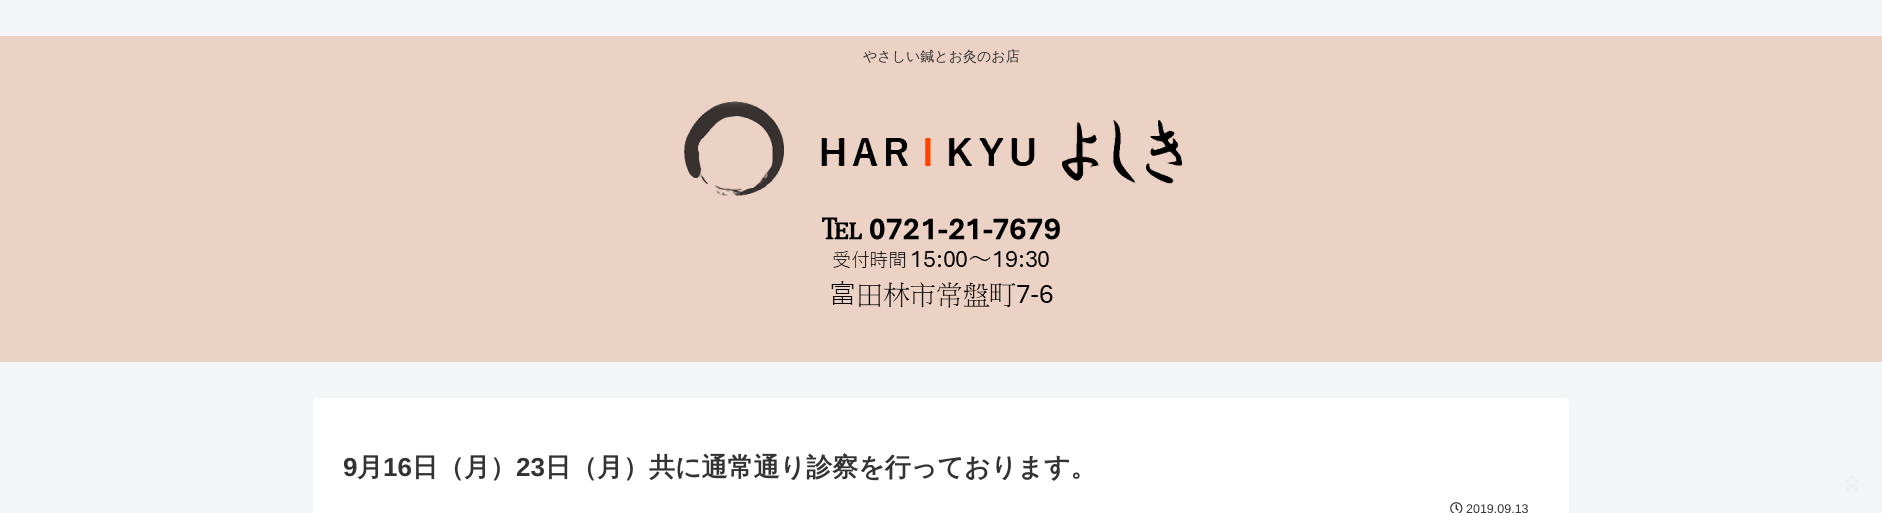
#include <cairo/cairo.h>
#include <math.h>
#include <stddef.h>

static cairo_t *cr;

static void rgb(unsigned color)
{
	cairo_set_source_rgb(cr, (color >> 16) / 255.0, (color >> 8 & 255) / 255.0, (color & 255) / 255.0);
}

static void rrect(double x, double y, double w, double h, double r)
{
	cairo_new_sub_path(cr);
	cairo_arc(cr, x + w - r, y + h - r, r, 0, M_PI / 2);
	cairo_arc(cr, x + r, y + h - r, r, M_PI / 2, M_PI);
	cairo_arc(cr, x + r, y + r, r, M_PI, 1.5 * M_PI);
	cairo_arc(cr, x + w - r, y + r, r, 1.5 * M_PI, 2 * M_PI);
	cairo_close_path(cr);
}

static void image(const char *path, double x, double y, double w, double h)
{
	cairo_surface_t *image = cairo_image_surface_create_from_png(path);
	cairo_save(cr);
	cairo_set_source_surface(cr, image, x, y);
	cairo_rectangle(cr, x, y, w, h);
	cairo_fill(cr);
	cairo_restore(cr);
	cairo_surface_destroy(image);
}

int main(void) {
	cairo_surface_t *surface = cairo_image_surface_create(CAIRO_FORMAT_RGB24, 1882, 513);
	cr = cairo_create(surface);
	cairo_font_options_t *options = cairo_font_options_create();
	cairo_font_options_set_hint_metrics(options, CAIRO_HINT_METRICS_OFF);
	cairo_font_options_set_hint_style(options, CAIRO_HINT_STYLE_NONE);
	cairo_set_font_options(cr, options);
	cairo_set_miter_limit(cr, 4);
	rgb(0xf4f5f7);
	cairo_paint(cr);
	rgb(0xebd2c4);
	cairo_rectangle(cr, 0, 36, 1882, 326);
	cairo_fill(cr);
	image("img/1.png", 684, 100, 499, 208);
	rgb(0xffffff);
	rrect(313, 398, 1256, 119, 4);
	cairo_fill(cr);
	image("img/2.png", 1450, 502, 13, 11);
	image("img/3.png", 1846, 475, 12, 16);
	cairo_select_font_face(cr, "WenQuanYi Zen Hei Medium", CAIRO_FONT_SLANT_NORMAL, CAIRO_FONT_WEIGHT_NORMAL);
	cairo_set_font_size(cr, 14);
	rgb(0x333333);
	cairo_move_to(cr, 863, 61);
	cairo_show_text(cr, "やさしい鍼とお灸のお店");
	cairo_select_font_face(cr, "Liberation Sans", CAIRO_FONT_SLANT_NORMAL, CAIRO_FONT_WEIGHT_BOLD);
	cairo_set_font_size(cr, 26);
	cairo_move_to(cr, 343, 476);
	cairo_show_text(cr, "9");
	cairo_select_font_face(cr, "WenQuanYi Zen Hei", CAIRO_FONT_SLANT_NORMAL, CAIRO_FONT_WEIGHT_BOLD);
	cairo_move_to(cr, 357, 476);
	cairo_show_text(cr, "月");
	cairo_select_font_face(cr, "Liberation Sans", CAIRO_FONT_SLANT_NORMAL, CAIRO_FONT_WEIGHT_BOLD);
	cairo_move_to(cr, 383, 476);
	cairo_show_text(cr, "16");
	cairo_select_font_face(cr, "WenQuanYi Zen Hei", CAIRO_FONT_SLANT_NORMAL, CAIRO_FONT_WEIGHT_BOLD);
	cairo_move_to(cr, 412, 476);
	cairo_show_text(cr, "日（月）");
	cairo_select_font_face(cr, "Liberation Sans", CAIRO_FONT_SLANT_NORMAL, CAIRO_FONT_WEIGHT_BOLD);
	cairo_move_to(cr, 516, 476);
	cairo_show_text(cr, "23");
	cairo_select_font_face(cr, "WenQuanYi Zen Hei", CAIRO_FONT_SLANT_NORMAL, CAIRO_FONT_WEIGHT_BOLD);
	cairo_move_to(cr, 545, 476);
	cairo_show_text(cr, "日（月）共に通常通り診察を行っております。");
	cairo_select_font_face(cr, "Liberation Sans", CAIRO_FONT_SLANT_NORMAL, CAIRO_FONT_WEIGHT_NORMAL);
	cairo_set_font_size(cr, 12.5);
	cairo_move_to(cr, 1466, 513);
	cairo_show_text(cr, "2019.09.13");
	cairo_surface_write_to_png(surface, "page.png");
	cairo_font_options_destroy(options);
	cairo_destroy(cr);
	cairo_surface_destroy(surface);
	return 0;
}
